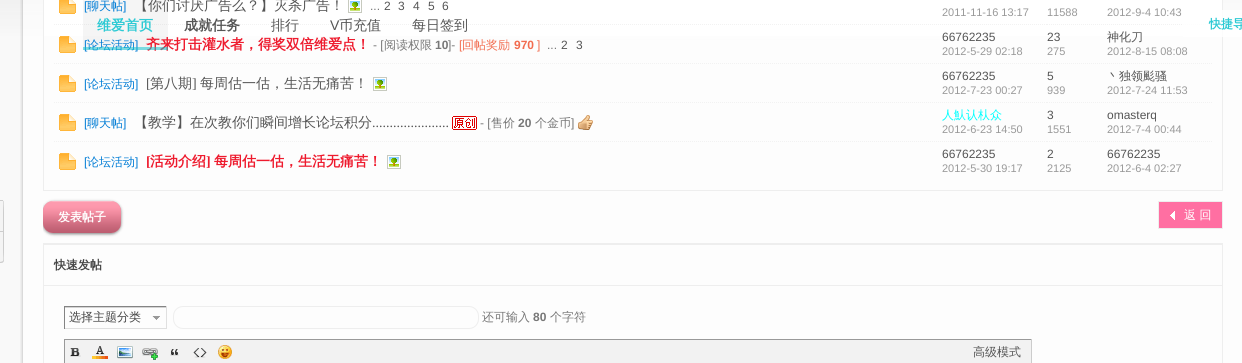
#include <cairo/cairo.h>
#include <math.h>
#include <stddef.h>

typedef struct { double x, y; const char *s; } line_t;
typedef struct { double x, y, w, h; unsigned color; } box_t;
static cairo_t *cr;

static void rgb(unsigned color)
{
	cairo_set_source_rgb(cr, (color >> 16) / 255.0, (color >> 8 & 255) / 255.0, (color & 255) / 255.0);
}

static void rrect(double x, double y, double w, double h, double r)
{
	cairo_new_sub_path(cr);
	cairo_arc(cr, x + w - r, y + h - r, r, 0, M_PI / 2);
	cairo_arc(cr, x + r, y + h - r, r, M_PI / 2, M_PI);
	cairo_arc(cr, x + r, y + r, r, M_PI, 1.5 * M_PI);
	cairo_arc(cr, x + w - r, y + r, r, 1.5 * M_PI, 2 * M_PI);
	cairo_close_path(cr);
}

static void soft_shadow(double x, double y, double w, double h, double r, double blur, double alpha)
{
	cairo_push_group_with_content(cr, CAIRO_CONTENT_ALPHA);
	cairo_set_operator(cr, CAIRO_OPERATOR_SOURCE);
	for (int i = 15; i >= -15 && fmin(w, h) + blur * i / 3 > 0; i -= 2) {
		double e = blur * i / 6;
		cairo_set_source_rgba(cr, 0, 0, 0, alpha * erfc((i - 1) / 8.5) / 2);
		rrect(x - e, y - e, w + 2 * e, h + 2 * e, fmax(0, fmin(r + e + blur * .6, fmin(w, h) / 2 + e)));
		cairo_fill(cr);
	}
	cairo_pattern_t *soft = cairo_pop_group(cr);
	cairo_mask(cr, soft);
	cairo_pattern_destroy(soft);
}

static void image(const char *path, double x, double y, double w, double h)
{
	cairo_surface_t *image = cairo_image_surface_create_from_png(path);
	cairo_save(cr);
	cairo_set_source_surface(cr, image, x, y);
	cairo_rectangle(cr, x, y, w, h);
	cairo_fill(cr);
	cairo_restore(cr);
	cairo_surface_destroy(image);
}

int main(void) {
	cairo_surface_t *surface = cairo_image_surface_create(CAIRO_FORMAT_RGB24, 1242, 363);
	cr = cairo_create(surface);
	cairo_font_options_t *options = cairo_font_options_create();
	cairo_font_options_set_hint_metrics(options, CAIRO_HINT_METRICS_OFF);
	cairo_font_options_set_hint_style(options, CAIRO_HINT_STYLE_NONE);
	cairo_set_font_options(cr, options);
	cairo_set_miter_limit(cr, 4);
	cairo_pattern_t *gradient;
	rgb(0xffffff);
	cairo_paint(cr);
	image("img/1.png", 0, 0, 1242, 36);
	gradient = cairo_pattern_create_linear(632, -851, 633, 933);
	cairo_pattern_add_color_stop_rgba(gradient, 0, 0.976, 0.976, 0.976, 0);
	cairo_pattern_add_color_stop_rgba(gradient, 0.5, 0.976, 0.976, 0.976, 1);
	cairo_pattern_add_color_stop_rgba(gradient, 1, 0.976, 0.976, 0.976, 1);
	cairo_set_source(cr, gradient);
	cairo_pattern_destroy(gradient);
	cairo_rectangle(cr, 0, 0, 1242, 363);
	cairo_fill(cr);
	cairo_save(cr);
	cairo_rectangle(cr, 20, 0, 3, 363);
	cairo_clip(cr);
	rgb(0x000000);
	soft_shadow(23, -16, 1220, 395, 10, 2, 0.3);
	cairo_restore(cr);
	cairo_set_source_rgba(cr, 1, 1, 1, 0.6);
	cairo_rectangle(cr, 23, 0, 1219, 363);
	cairo_fill(cr);
	rgb(0xffffff);
	cairo_rectangle(cr, 44, 0, 1178, 36);
	cairo_fill(cr);
	cairo_rectangle(cr, 43.5, -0.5, 1179, 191);
	rgb(0xeeeeee);
	cairo_set_line_width(cr, 1);
	cairo_stroke(cr);
	cairo_new_path(cr);
	cairo_move_to(cr, 54, 24.5);
	cairo_line_to(cr, 84, 24.5);
	rgb(0xf2f2f2);
	cairo_set_dash(cr, (double[]){1, 1}, 2, 0);
	cairo_stroke(cr);
	image("img/2.png", 59, 0, 17, 14);
	cairo_new_path(cr);
	cairo_move_to(cr, 84, 24.5);
	cairo_line_to(cr, 942, 24.5);
	cairo_stroke(cr);
	image("img/3.png", 348, 0, 14, 13);
	cairo_new_path(cr);
	cairo_move_to(cr, 942, 24.5);
	cairo_line_to(cr, 1047, 24.5);
	cairo_stroke(cr);
	cairo_new_path(cr);
	cairo_move_to(cr, 1047, 24.5);
	cairo_line_to(cr, 1107, 24.5);
	cairo_stroke(cr);
	cairo_new_path(cr);
	cairo_move_to(cr, 1107, 24.5);
	cairo_line_to(cr, 1212, 24.5);
	cairo_stroke(cr);
	cairo_new_path(cr);
	cairo_move_to(cr, 54, 63.5);
	cairo_line_to(cr, 84, 63.5);
	cairo_stroke(cr);
	image("img/4.png", 59, 36, 17, 17);
	cairo_new_path(cr);
	cairo_move_to(cr, 84, 63.5);
	cairo_line_to(cr, 942, 63.5);
	cairo_stroke(cr);
	cairo_new_path(cr);
	cairo_move_to(cr, 942, 63.5);
	cairo_line_to(cr, 1047, 63.5);
	cairo_stroke(cr);
	cairo_new_path(cr);
	cairo_move_to(cr, 1047, 63.5);
	cairo_line_to(cr, 1107, 63.5);
	cairo_stroke(cr);
	cairo_new_path(cr);
	cairo_move_to(cr, 1107, 63.5);
	cairo_line_to(cr, 1212, 63.5);
	cairo_stroke(cr);
	cairo_new_path(cr);
	cairo_move_to(cr, 54, 102.5);
	cairo_line_to(cr, 84, 102.5);
	cairo_stroke(cr);
	image("img/4.png", 59, 75, 17, 17);
	cairo_new_path(cr);
	cairo_move_to(cr, 84, 102.5);
	cairo_line_to(cr, 942, 102.5);
	cairo_stroke(cr);
	image("img/5.png", 373, 77, 14, 14);
	cairo_new_path(cr);
	cairo_move_to(cr, 942, 102.5);
	cairo_line_to(cr, 1047, 102.5);
	cairo_stroke(cr);
	cairo_new_path(cr);
	cairo_move_to(cr, 1047, 102.5);
	cairo_line_to(cr, 1107, 102.5);
	cairo_stroke(cr);
	cairo_new_path(cr);
	cairo_move_to(cr, 1107, 102.5);
	cairo_line_to(cr, 1212, 102.5);
	cairo_stroke(cr);
	cairo_new_path(cr);
	cairo_move_to(cr, 54, 141.5);
	cairo_line_to(cr, 84, 141.5);
	cairo_stroke(cr);
	image("img/4.png", 59, 114, 17, 17);
	cairo_new_path(cr);
	cairo_move_to(cr, 84, 141.5);
	cairo_line_to(cr, 942, 141.5);
	cairo_stroke(cr);
	image("img/6.png", 452, 116, 25, 14);
	image("img/7.png", 578, 115, 15, 15);
	cairo_new_path(cr);
	cairo_move_to(cr, 942, 141.5);
	cairo_line_to(cr, 1047, 141.5);
	cairo_stroke(cr);
	cairo_new_path(cr);
	cairo_move_to(cr, 1047, 141.5);
	cairo_line_to(cr, 1107, 141.5);
	cairo_stroke(cr);
	cairo_new_path(cr);
	cairo_move_to(cr, 1107, 141.5);
	cairo_line_to(cr, 1212, 141.5);
	cairo_stroke(cr);
	image("img/4.png", 59, 153, 17, 17);
	image("img/5.png", 387, 155, 14, 14);
	cairo_save(cr);
	cairo_rectangle(cr, 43, 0, 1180, 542);
	cairo_clip(cr);
	rgb(0x000000);
	soft_shadow(43, 202, 78, 32, 10, 1.5, 0.5);
	cairo_restore(cr);
	rgb(0xfc7a94);
	rrect(43, 201, 78, 32, 10);
	cairo_fill(cr);
	image("img/8.png", 43, 201, 78, 32);
	rgb(0xff6fa2);
	cairo_rectangle(cr, 1159, 202, 63, 26);
	cairo_fill(cr);
	image("img/9.png", 1170, 211, 5, 9);
	cairo_rectangle(cr, 1158.5, 201.5, 64, 27);
	rgb(0xeeeeee);
	cairo_set_dash(cr, NULL, 0, 0);
	cairo_stroke(cr);
	cairo_rectangle(cr, 43.5, 243.5, 1179, 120);
	cairo_stroke(cr);
	cairo_rectangle(cr, 44, 244, 1178, 1);
	cairo_fill(cr);
	cairo_rectangle(cr, 44, 285, 1178, 1);
	cairo_fill(cr);
	image("img/10.png", 65, 307, 101, 13);
	{
		static const box_t items[] = {
			{64, 306, 103, 1, 0x848484},
			{166, 306, 1, 23, 0xe0e0e0},
			{64, 328, 103, 1, 0xe0e0e0},
			{64, 306, 1, 23, 0x848484},
		};
		for (size_t i = 0; i < sizeof items / sizeof *items; i++) {
			rgb(items[i].color);
			cairo_rectangle(cr, items[i].x, items[i].y, items[i].w, items[i].h);
			cairo_fill(cr);
		}
	}
	rrect(173.5, 306.5, 305, 22, 9.5);
	rgb(0xeeeeee);
	cairo_stroke(cr);
	{
		static const box_t items[] = {
			{64, 339, 968, 1, 0x999999},
			{1031, 339, 1, 24, 0xcccccc},
			{64, 339, 1, 24, 0x999999},
			{65, 340, 966, 23, 0xf2f2f2},
		};
		for (size_t i = 0; i < sizeof items / sizeof *items; i++) {
			rgb(items[i].color);
			cairo_rectangle(cr, items[i].x, items[i].y, items[i].w, items[i].h);
			cairo_fill(cr);
		}
	}
	image("img/11.png", 70, 348, 11, 9);
	image("img/12.png", 92, 346, 16, 13);
	image("img/13.png", 117, 346, 16, 13);
	image("img/14.png", 142, 348, 17, 12);
	image("img/15.png", 170, 349, 9, 7);
	image("img/16.png", 193, 348, 14, 10);
	image("img/17.png", 217, 345, 15, 14);
	cairo_set_source_rgba(cr, 0, 0, 0, 0.04);
	cairo_rectangle(cr, 83, 0, 85, 50);
	cairo_fill(cr);
	cairo_set_source_rgba(cr, 1, 1, 1, 0.85);
	cairo_rectangle(cr, 1183, 10, 59, 27);
	cairo_fill(cr);
	rgb(0xf4f4f4);
	rrect(-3, 200, 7, 63, 3);
	cairo_fill(cr);
	rgb(0xcdcdcd);
	cairo_set_fill_rule(cr, CAIRO_FILL_RULE_EVEN_ODD);
	cairo_new_path(cr);
	cairo_move_to(cr, -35, 200);
	cairo_line_to(cr, 1, 200);
	cairo_curve_to(cr, 3, 200, 4, 201, 4, 203);
	cairo_line_to(cr, 4, 260);
	cairo_curve_to(cr, 4, 262, 3, 263, 1, 263);
	cairo_line_to(cr, -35, 263);
	cairo_curve_to(cr, -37, 263, -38, 262, -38, 260);
	cairo_line_to(cr, -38, 203);
	cairo_curve_to(cr, -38, 201, -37, 200, -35, 200);
	cairo_close_path(cr);
	cairo_move_to(cr, -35, 200);
	cairo_line_to(cr, -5, 200);
	cairo_curve_to(cr, 6, 200, 3, 200, 3, 212);
	cairo_line_to(cr, 3, 250);
	cairo_curve_to(cr, 3, 262, 6, 262, -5, 262);
	cairo_line_to(cr, -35, 262);
	cairo_line_to(cr, -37, 261);
	cairo_line_to(cr, -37, 203);
	cairo_curve_to(cr, -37, 202, -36, 200, -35, 200);
	cairo_close_path(cr);
	cairo_fill(cr);
	cairo_rectangle(cr, 0, 200, 3, 1);
	cairo_fill(cr);
	cairo_rectangle(cr, 0, 231, 3, 1);
	cairo_fill(cr);
	cairo_select_font_face(cr, "Liberation Sans", CAIRO_FONT_SLANT_NORMAL, CAIRO_FONT_WEIGHT_NORMAL);
	cairo_set_font_size(cr, 12);
	rgb(0x007cd5);
	cairo_move_to(cr, 84, 10);
	cairo_show_text(cr, "[");
	cairo_select_font_face(cr, "WenQuanYi Zen Hei Medium", CAIRO_FONT_SLANT_NORMAL, CAIRO_FONT_WEIGHT_NORMAL);
	cairo_move_to(cr, 87, 10);
	cairo_show_text(cr, "聊天帖");
	cairo_select_font_face(cr, "Liberation Sans", CAIRO_FONT_SLANT_NORMAL, CAIRO_FONT_WEIGHT_NORMAL);
	cairo_move_to(cr, 123, 10);
	cairo_show_text(cr, "]");
	cairo_select_font_face(cr, "WenQuanYi Zen Hei Medium", CAIRO_FONT_SLANT_NORMAL, CAIRO_FONT_WEIGHT_NORMAL);
	cairo_set_font_size(cr, 14);
	rgb(0x555555);
	cairo_move_to(cr, 134, 10);
	cairo_show_text(cr, "【你们讨厌广告么？】灭杀广告！");
	cairo_select_font_face(cr, "Liberation Sans", CAIRO_FONT_SLANT_NORMAL, CAIRO_FONT_WEIGHT_NORMAL);
	cairo_set_font_size(cr, 12);
	rgb(0x777777);
	cairo_move_to(cr, 370, 10);
	cairo_show_text(cr, "...");
	rgb(0x555555);
	{
		static const line_t items[] = {
			{384, 10, "2"},
			{398, 10, "3"},
			{413, 10, "4"},
			{428, 10, "5"},
			{442, 10, "6"},
		};
		for (size_t i = 0; i < sizeof items / sizeof *items; i++) {
			cairo_move_to(cr, items[i].x, items[i].y);
			cairo_show_text(cr, items[i].s);
		}
	}
	cairo_set_font_size(cr, 11);
	rgb(0x999999);
	{
		static const line_t items[] = {
			{942, 16, "2011-11-16 13:17"},
			{1047, 16, "11588"},
			{1107, 16, "2012-9-4 10:43"},
		};
		for (size_t i = 0; i < sizeof items / sizeof *items; i++) {
			cairo_move_to(cr, items[i].x, items[i].y);
			cairo_show_text(cr, items[i].s);
		}
	}
	cairo_set_font_size(cr, 12);
	rgb(0x007cd5);
	cairo_move_to(cr, 84, 49);
	cairo_show_text(cr, "[");
	cairo_select_font_face(cr, "WenQuanYi Zen Hei Medium", CAIRO_FONT_SLANT_NORMAL, CAIRO_FONT_WEIGHT_NORMAL);
	cairo_move_to(cr, 87, 49);
	cairo_show_text(cr, "论坛活动");
	cairo_select_font_face(cr, "Liberation Sans", CAIRO_FONT_SLANT_NORMAL, CAIRO_FONT_WEIGHT_NORMAL);
	cairo_move_to(cr, 135, 49);
	cairo_show_text(cr, "]");
	cairo_select_font_face(cr, "WenQuanYi Zen Hei", CAIRO_FONT_SLANT_NORMAL, CAIRO_FONT_WEIGHT_BOLD);
	cairo_set_font_size(cr, 14);
	rgb(0xee1b2e);
	cairo_move_to(cr, 146, 49);
	cairo_show_text(cr, "齐来打击灌水者，得奖双倍维爱点！");
	cairo_select_font_face(cr, "Liberation Sans", CAIRO_FONT_SLANT_NORMAL, CAIRO_FONT_WEIGHT_NORMAL);
	cairo_set_font_size(cr, 12);
	rgb(0x777777);
	cairo_move_to(cr, 373, 49);
	cairo_show_text(cr, "- [");
	cairo_select_font_face(cr, "WenQuanYi Zen Hei Medium", CAIRO_FONT_SLANT_NORMAL, CAIRO_FONT_WEIGHT_NORMAL);
	cairo_move_to(cr, 384, 49);
	cairo_show_text(cr, "阅读权限");
	cairo_select_font_face(cr, "Liberation Sans", CAIRO_FONT_SLANT_NORMAL, CAIRO_FONT_WEIGHT_BOLD);
	cairo_move_to(cr, 435, 49);
	cairo_show_text(cr, "10");
	cairo_select_font_face(cr, "Liberation Sans", CAIRO_FONT_SLANT_NORMAL, CAIRO_FONT_WEIGHT_NORMAL);
	cairo_move_to(cr, 448, 49);
	cairo_show_text(cr, "]-");
	rgb(0xf26c4f);
	cairo_move_to(cr, 459, 49);
	cairo_show_text(cr, "[");
	cairo_select_font_face(cr, "WenQuanYi Zen Hei Medium", CAIRO_FONT_SLANT_NORMAL, CAIRO_FONT_WEIGHT_NORMAL);
	cairo_move_to(cr, 462, 49);
	cairo_show_text(cr, "回帖奖励");
	cairo_select_font_face(cr, "Liberation Sans", CAIRO_FONT_SLANT_NORMAL, CAIRO_FONT_WEIGHT_BOLD);
	cairo_move_to(cr, 514, 49);
	cairo_show_text(cr, "970");
	cairo_select_font_face(cr, "Liberation Sans", CAIRO_FONT_SLANT_NORMAL, CAIRO_FONT_WEIGHT_NORMAL);
	cairo_move_to(cr, 537, 49);
	cairo_show_text(cr, "]");
	rgb(0x777777);
	cairo_move_to(cr, 547, 49);
	cairo_show_text(cr, "...");
	rgb(0x555555);
	{
		static const line_t items[] = {
			{561, 49, "2"},
			{576, 49, "3"},
			{942, 41, "66762235"},
		};
		for (size_t i = 0; i < sizeof items / sizeof *items; i++) {
			cairo_move_to(cr, items[i].x, items[i].y);
			cairo_show_text(cr, items[i].s);
		}
	}
	cairo_set_font_size(cr, 11);
	rgb(0x999999);
	cairo_move_to(cr, 942, 55);
	cairo_show_text(cr, "2012-5-29 02:18");
	cairo_set_font_size(cr, 12);
	rgb(0x555555);
	cairo_move_to(cr, 1047, 41);
	cairo_show_text(cr, "23");
	cairo_set_font_size(cr, 11);
	rgb(0x999999);
	cairo_move_to(cr, 1047, 55);
	cairo_show_text(cr, "275");
	cairo_select_font_face(cr, "WenQuanYi Zen Hei Medium", CAIRO_FONT_SLANT_NORMAL, CAIRO_FONT_WEIGHT_NORMAL);
	cairo_set_font_size(cr, 12);
	rgb(0x555555);
	cairo_move_to(cr, 1107, 41);
	cairo_show_text(cr, "神化刀");
	cairo_select_font_face(cr, "Liberation Sans", CAIRO_FONT_SLANT_NORMAL, CAIRO_FONT_WEIGHT_NORMAL);
	cairo_set_font_size(cr, 11);
	rgb(0x999999);
	cairo_move_to(cr, 1107, 55);
	cairo_show_text(cr, "2012-8-15 08:08");
	cairo_set_font_size(cr, 12);
	rgb(0x007cd5);
	cairo_move_to(cr, 84, 88);
	cairo_show_text(cr, "[");
	cairo_select_font_face(cr, "WenQuanYi Zen Hei Medium", CAIRO_FONT_SLANT_NORMAL, CAIRO_FONT_WEIGHT_NORMAL);
	cairo_move_to(cr, 87, 88);
	cairo_show_text(cr, "论坛活动");
	cairo_select_font_face(cr, "Liberation Sans", CAIRO_FONT_SLANT_NORMAL, CAIRO_FONT_WEIGHT_NORMAL);
	cairo_move_to(cr, 135, 88);
	cairo_show_text(cr, "]");
	cairo_select_font_face(cr, "Liberation Serif", CAIRO_FONT_SLANT_NORMAL, CAIRO_FONT_WEIGHT_NORMAL);
	cairo_set_font_size(cr, 14);
	rgb(0x555555);
	cairo_move_to(cr, 146, 88);
	cairo_show_text(cr, "[");
	cairo_select_font_face(cr, "WenQuanYi Zen Hei Medium", CAIRO_FONT_SLANT_NORMAL, CAIRO_FONT_WEIGHT_NORMAL);
	cairo_move_to(cr, 150, 88);
	cairo_show_text(cr, "第八期");
	cairo_select_font_face(cr, "Liberation Serif", CAIRO_FONT_SLANT_NORMAL, CAIRO_FONT_WEIGHT_NORMAL);
	cairo_move_to(cr, 192, 88);
	cairo_show_text(cr, "]");
	cairo_select_font_face(cr, "WenQuanYi Zen Hei Medium", CAIRO_FONT_SLANT_NORMAL, CAIRO_FONT_WEIGHT_NORMAL);
	cairo_move_to(cr, 200, 88);
	cairo_show_text(cr, "每周估一估，生活无痛苦！");
	cairo_select_font_face(cr, "Liberation Sans", CAIRO_FONT_SLANT_NORMAL, CAIRO_FONT_WEIGHT_NORMAL);
	cairo_set_font_size(cr, 12);
	cairo_move_to(cr, 942, 80);
	cairo_show_text(cr, "66762235");
	cairo_set_font_size(cr, 11);
	rgb(0x999999);
	cairo_move_to(cr, 942, 94);
	cairo_show_text(cr, "2012-7-23 00:27");
	cairo_set_font_size(cr, 12);
	rgb(0x555555);
	cairo_move_to(cr, 1047, 80);
	cairo_show_text(cr, "5");
	cairo_set_font_size(cr, 11);
	rgb(0x999999);
	cairo_move_to(cr, 1047, 94);
	cairo_show_text(cr, "939");
	cairo_select_font_face(cr, "WenQuanYi Zen Hei Medium", CAIRO_FONT_SLANT_NORMAL, CAIRO_FONT_WEIGHT_NORMAL);
	cairo_set_font_size(cr, 12);
	rgb(0x555555);
	cairo_move_to(cr, 1107, 80);
	cairo_show_text(cr, "丶独领颩骚");
	cairo_select_font_face(cr, "Liberation Sans", CAIRO_FONT_SLANT_NORMAL, CAIRO_FONT_WEIGHT_NORMAL);
	cairo_set_font_size(cr, 11);
	rgb(0x999999);
	cairo_move_to(cr, 1107, 94);
	cairo_show_text(cr, "2012-7-24 11:53");
	cairo_set_font_size(cr, 12);
	rgb(0x007cd5);
	cairo_move_to(cr, 84, 127);
	cairo_show_text(cr, "[");
	cairo_select_font_face(cr, "WenQuanYi Zen Hei Medium", CAIRO_FONT_SLANT_NORMAL, CAIRO_FONT_WEIGHT_NORMAL);
	cairo_move_to(cr, 87, 127);
	cairo_show_text(cr, "聊天帖");
	cairo_select_font_face(cr, "Liberation Sans", CAIRO_FONT_SLANT_NORMAL, CAIRO_FONT_WEIGHT_NORMAL);
	cairo_move_to(cr, 123, 127);
	cairo_show_text(cr, "]");
	cairo_select_font_face(cr, "WenQuanYi Zen Hei Medium", CAIRO_FONT_SLANT_NORMAL, CAIRO_FONT_WEIGHT_NORMAL);
	cairo_set_font_size(cr, 14);
	rgb(0x555555);
	cairo_move_to(cr, 134, 127);
	cairo_show_text(cr, "【教学】在次教你们瞬间增长论坛积分");
	cairo_select_font_face(cr, "Liberation Serif", CAIRO_FONT_SLANT_NORMAL, CAIRO_FONT_WEIGHT_NORMAL);
	cairo_move_to(cr, 372, 127);
	cairo_show_text(cr, "......................");
	cairo_select_font_face(cr, "Liberation Sans", CAIRO_FONT_SLANT_NORMAL, CAIRO_FONT_WEIGHT_NORMAL);
	cairo_set_font_size(cr, 12);
	rgb(0x777777);
	cairo_move_to(cr, 480, 127);
	cairo_show_text(cr, "- [");
	cairo_select_font_face(cr, "WenQuanYi Zen Hei Medium", CAIRO_FONT_SLANT_NORMAL, CAIRO_FONT_WEIGHT_NORMAL);
	cairo_move_to(cr, 491, 127);
	cairo_show_text(cr, "售价");
	cairo_select_font_face(cr, "Liberation Sans", CAIRO_FONT_SLANT_NORMAL, CAIRO_FONT_WEIGHT_BOLD);
	cairo_move_to(cr, 518, 127);
	cairo_show_text(cr, "20");
	cairo_select_font_face(cr, "WenQuanYi Zen Hei Medium", CAIRO_FONT_SLANT_NORMAL, CAIRO_FONT_WEIGHT_NORMAL);
	cairo_move_to(cr, 535, 127);
	cairo_show_text(cr, "个金币");
	cairo_select_font_face(cr, "Liberation Sans", CAIRO_FONT_SLANT_NORMAL, CAIRO_FONT_WEIGHT_NORMAL);
	cairo_move_to(cr, 571, 127);
	cairo_show_text(cr, "]");
	cairo_select_font_face(cr, "WenQuanYi Zen Hei Medium", CAIRO_FONT_SLANT_NORMAL, CAIRO_FONT_WEIGHT_NORMAL);
	rgb(0x00ffff);
	cairo_move_to(cr, 942, 119);
	cairo_show_text(cr, "人魜认朲众");
	cairo_select_font_face(cr, "Liberation Sans", CAIRO_FONT_SLANT_NORMAL, CAIRO_FONT_WEIGHT_NORMAL);
	cairo_set_font_size(cr, 11);
	rgb(0x999999);
	cairo_move_to(cr, 942, 133);
	cairo_show_text(cr, "2012-6-23 14:50");
	cairo_set_font_size(cr, 12);
	rgb(0x555555);
	cairo_move_to(cr, 1047, 119);
	cairo_show_text(cr, "3");
	cairo_set_font_size(cr, 11);
	rgb(0x999999);
	cairo_move_to(cr, 1047, 133);
	cairo_show_text(cr, "1551");
	cairo_set_font_size(cr, 12);
	rgb(0x555555);
	cairo_move_to(cr, 1107, 119);
	cairo_show_text(cr, "omasterq");
	cairo_set_font_size(cr, 11);
	rgb(0x999999);
	cairo_move_to(cr, 1107, 133);
	cairo_show_text(cr, "2012-7-4 00:44");
	cairo_set_font_size(cr, 12);
	rgb(0x007cd5);
	cairo_move_to(cr, 84, 166);
	cairo_show_text(cr, "[");
	cairo_select_font_face(cr, "WenQuanYi Zen Hei Medium", CAIRO_FONT_SLANT_NORMAL, CAIRO_FONT_WEIGHT_NORMAL);
	cairo_move_to(cr, 87, 166);
	cairo_show_text(cr, "论坛活动");
	cairo_select_font_face(cr, "Liberation Sans", CAIRO_FONT_SLANT_NORMAL, CAIRO_FONT_WEIGHT_NORMAL);
	cairo_move_to(cr, 135, 166);
	cairo_show_text(cr, "]");
	cairo_select_font_face(cr, "Liberation Serif", CAIRO_FONT_SLANT_NORMAL, CAIRO_FONT_WEIGHT_BOLD);
	cairo_set_font_size(cr, 14);
	rgb(0xee1b2e);
	cairo_move_to(cr, 146, 166);
	cairo_show_text(cr, "[");
	cairo_select_font_face(cr, "WenQuanYi Zen Hei", CAIRO_FONT_SLANT_NORMAL, CAIRO_FONT_WEIGHT_BOLD);
	cairo_move_to(cr, 150, 166);
	cairo_show_text(cr, "活动介绍");
	cairo_select_font_face(cr, "Liberation Serif", CAIRO_FONT_SLANT_NORMAL, CAIRO_FONT_WEIGHT_BOLD);
	cairo_move_to(cr, 206, 166);
	cairo_show_text(cr, "]");
	cairo_select_font_face(cr, "WenQuanYi Zen Hei", CAIRO_FONT_SLANT_NORMAL, CAIRO_FONT_WEIGHT_BOLD);
	cairo_move_to(cr, 214, 166);
	cairo_show_text(cr, "每周估一估，生活无痛苦！");
	cairo_select_font_face(cr, "Liberation Sans", CAIRO_FONT_SLANT_NORMAL, CAIRO_FONT_WEIGHT_NORMAL);
	cairo_set_font_size(cr, 12);
	rgb(0x555555);
	cairo_move_to(cr, 942, 158);
	cairo_show_text(cr, "66762235");
	cairo_set_font_size(cr, 11);
	rgb(0x999999);
	cairo_move_to(cr, 942, 172);
	cairo_show_text(cr, "2012-5-30 19:17");
	cairo_set_font_size(cr, 12);
	rgb(0x555555);
	cairo_move_to(cr, 1047, 158);
	cairo_show_text(cr, "2");
	cairo_set_font_size(cr, 11);
	rgb(0x999999);
	cairo_move_to(cr, 1047, 172);
	cairo_show_text(cr, "2125");
	cairo_set_font_size(cr, 12);
	rgb(0x555555);
	cairo_move_to(cr, 1107, 158);
	cairo_show_text(cr, "66762235");
	cairo_set_font_size(cr, 11);
	rgb(0x999999);
	cairo_move_to(cr, 1107, 172);
	cairo_show_text(cr, "2012-6-4 02:27");
	cairo_select_font_face(cr, "WenQuanYi Zen Hei", CAIRO_FONT_SLANT_NORMAL, CAIRO_FONT_WEIGHT_BOLD);
	cairo_set_font_size(cr, 12);
	rgb(0xffffff);
	cairo_move_to(cr, 58, 221);
	cairo_show_text(cr, "发表帖子");
	cairo_select_font_face(cr, "WenQuanYi Zen Hei Medium", CAIRO_FONT_SLANT_NORMAL, CAIRO_FONT_WEIGHT_NORMAL);
	cairo_move_to(cr, 1184, 219);
	cairo_show_text(cr, "返 回");
	cairo_select_font_face(cr, "WenQuanYi Zen Hei", CAIRO_FONT_SLANT_NORMAL, CAIRO_FONT_WEIGHT_BOLD);
	rgb(0x444444);
	cairo_move_to(cr, 54, 269);
	cairo_show_text(cr, "快速发帖");
	cairo_select_font_face(cr, "WenQuanYi Zen Hei Medium", CAIRO_FONT_SLANT_NORMAL, CAIRO_FONT_WEIGHT_NORMAL);
	cairo_move_to(cr, 69, 321);
	cairo_show_text(cr, "选择主题分类");
	rgb(0x777777);
	cairo_move_to(cr, 482, 321);
	cairo_show_text(cr, "还可输入");
	cairo_select_font_face(cr, "Liberation Sans", CAIRO_FONT_SLANT_NORMAL, CAIRO_FONT_WEIGHT_BOLD);
	cairo_move_to(cr, 533, 321);
	cairo_show_text(cr, "80");
	cairo_select_font_face(cr, "WenQuanYi Zen Hei Medium", CAIRO_FONT_SLANT_NORMAL, CAIRO_FONT_WEIGHT_NORMAL);
	cairo_move_to(cr, 550, 321);
	cairo_show_text(cr, "个字符");
	rgb(0x555555);
	cairo_move_to(cr, 973, 356);
	cairo_show_text(cr, "高级模式");
	cairo_set_source_rgba(cr, 0.039, 0.761, 0.808, 0.51);
	cairo_rectangle(cr, 83, 47, 85, 3);
	cairo_fill(cr);
	cairo_select_font_face(cr, "WenQuanYi Zen Hei", CAIRO_FONT_SLANT_NORMAL, CAIRO_FONT_WEIGHT_BOLD);
	cairo_set_font_size(cr, 14);
	rgb(0x2dcad4);
	cairo_move_to(cr, 97, 30);
	cairo_show_text(cr, "维爱首页");
	rgb(0x555555);
	cairo_move_to(cr, 184, 30);
	cairo_show_text(cr, "成就任务");
	cairo_select_font_face(cr, "WenQuanYi Zen Hei Medium", CAIRO_FONT_SLANT_NORMAL, CAIRO_FONT_WEIGHT_NORMAL);
	cairo_move_to(cr, 271, 30);
	cairo_show_text(cr, "排行");
	cairo_select_font_face(cr, "Liberation Sans", CAIRO_FONT_SLANT_NORMAL, CAIRO_FONT_WEIGHT_NORMAL);
	cairo_move_to(cr, 330, 30);
	cairo_show_text(cr, "V");
	cairo_select_font_face(cr, "WenQuanYi Zen Hei Medium", CAIRO_FONT_SLANT_NORMAL, CAIRO_FONT_WEIGHT_NORMAL);
	cairo_move_to(cr, 339, 30);
	cairo_show_text(cr, "币充值");
	cairo_move_to(cr, 412, 30);
	cairo_show_text(cr, "每日签到");
	cairo_select_font_face(cr, "WenQuanYi Zen Hei", CAIRO_FONT_SLANT_NORMAL, CAIRO_FONT_WEIGHT_BOLD);
	cairo_set_font_size(cr, 12);
	rgb(0x2dcad4);
	cairo_move_to(cr, 1209, 28);
	cairo_show_text(cr, "快捷导");
	cairo_surface_write_to_png(surface, "page.png");
	cairo_font_options_destroy(options);
	cairo_destroy(cr);
	cairo_surface_destroy(surface);
	return 0;
}
